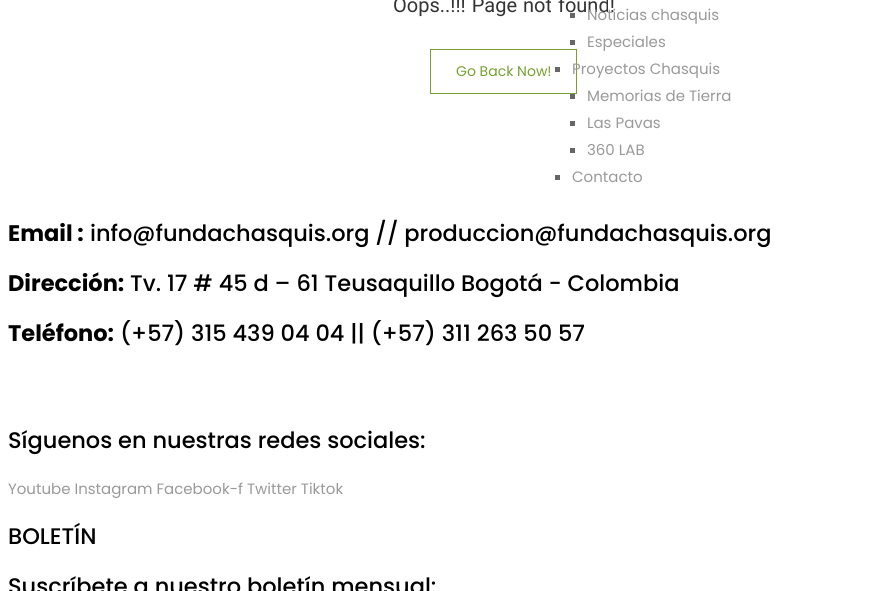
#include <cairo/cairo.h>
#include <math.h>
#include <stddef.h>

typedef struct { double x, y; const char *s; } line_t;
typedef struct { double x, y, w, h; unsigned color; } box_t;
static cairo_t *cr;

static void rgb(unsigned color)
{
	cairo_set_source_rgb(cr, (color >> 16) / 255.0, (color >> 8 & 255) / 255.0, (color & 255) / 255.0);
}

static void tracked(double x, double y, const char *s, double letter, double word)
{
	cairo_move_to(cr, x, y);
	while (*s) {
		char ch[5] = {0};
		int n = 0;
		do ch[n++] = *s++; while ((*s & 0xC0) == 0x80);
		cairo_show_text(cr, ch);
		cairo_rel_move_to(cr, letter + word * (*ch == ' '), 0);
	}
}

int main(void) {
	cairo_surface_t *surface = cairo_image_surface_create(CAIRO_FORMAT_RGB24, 887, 591);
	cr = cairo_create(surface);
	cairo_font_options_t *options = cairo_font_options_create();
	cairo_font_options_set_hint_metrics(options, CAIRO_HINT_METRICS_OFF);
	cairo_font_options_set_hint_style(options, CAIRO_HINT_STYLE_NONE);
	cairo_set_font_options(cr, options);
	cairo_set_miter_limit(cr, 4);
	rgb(0xffffff);
	cairo_paint(cr);
	cairo_rectangle(cr, 430.5, 49.5, 146, 44);
	rgb(0x76a12f);
	cairo_set_line_width(cr, 1);
	cairo_stroke(cr);
	{
		static const box_t items[] = {
			{570, 40, 5, 5, 0x666666},
			{555, 67, 5, 5, 0x666666},
			{570, 94, 5, 5, 0x666666},
			{570, 121, 5, 5, 0x666666},
			{570, 148, 5, 5, 0x666666},
			{555, 175, 5, 5, 0x666666},
		};
		for (size_t i = 0; i < sizeof items / sizeof *items; i++) {
			rgb(items[i].color);
			cairo_rectangle(cr, items[i].x, items[i].y, items[i].w, items[i].h);
			cairo_fill(cr);
		}
	}
	cairo_select_font_face(cr, "Roboto", CAIRO_FONT_SLANT_NORMAL, CAIRO_FONT_WEIGHT_NORMAL);
	cairo_set_font_size(cr, 20);
	rgb(0x333333);
	tracked(393, 12, "Oops..!!! Page not found!", 0, 1);
	cairo_select_font_face(cr, "Poppins", CAIRO_FONT_SLANT_NORMAL, CAIRO_FONT_WEIGHT_NORMAL);
	cairo_set_font_size(cr, 14);
	rgb(0x76a12f);
	cairo_move_to(cr, 456, 76);
	cairo_show_text(cr, "Go Back Now!");
	rgb(0x666666);
	cairo_rectangle(cr, 570, 13, 5, 5);
	cairo_fill(cr);
	cairo_set_font_size(cr, 15);
	rgb(0x999999);
	{
		static const line_t items[] = {
			{587, 20, "Noticias chasquis"},
			{587, 47, "Especiales"},
			{572, 74, "Proyectos Chasquis"},
			{587, 101, "Memorias de Tierra"},
			{587, 128, "Las Pavas"},
			{587, 155, "360 LAB"},
			{572, 182, "Contacto"},
		};
		for (size_t i = 0; i < sizeof items / sizeof *items; i++) {
			cairo_move_to(cr, items[i].x, items[i].y);
			cairo_show_text(cr, items[i].s);
		}
	}
	cairo_select_font_face(cr, "Poppins", CAIRO_FONT_SLANT_NORMAL, CAIRO_FONT_WEIGHT_BOLD);
	cairo_set_font_size(cr, 22.5);
	rgb(0x000000);
	cairo_move_to(cr, 8, 241);
	cairo_show_text(cr, "Email :");
	cairo_select_font_face(cr, "Poppins Medium", CAIRO_FONT_SLANT_NORMAL, CAIRO_FONT_WEIGHT_NORMAL);
	cairo_move_to(cr, 90, 241);
	cairo_show_text(cr, "info@fundachasquis.org // produccion@fundachasquis.org");
	cairo_select_font_face(cr, "Poppins", CAIRO_FONT_SLANT_NORMAL, CAIRO_FONT_WEIGHT_BOLD);
	cairo_move_to(cr, 8, 291);
	cairo_show_text(cr, "Dirección:");
	cairo_select_font_face(cr, "Poppins Medium", CAIRO_FONT_SLANT_NORMAL, CAIRO_FONT_WEIGHT_NORMAL);
	cairo_move_to(cr, 130, 291);
	cairo_show_text(cr, "Tv. 17 # 45 d – 61 Teusaquillo Bogotá - Colombia");
	cairo_select_font_face(cr, "Poppins", CAIRO_FONT_SLANT_NORMAL, CAIRO_FONT_WEIGHT_BOLD);
	cairo_move_to(cr, 8, 341);
	cairo_show_text(cr, "Teléfono:");
	cairo_select_font_face(cr, "Poppins Medium", CAIRO_FONT_SLANT_NORMAL, CAIRO_FONT_WEIGHT_NORMAL);
	cairo_move_to(cr, 120, 341);
	cairo_show_text(cr, "(+57) 315 439 04 04 || (+57) 311 263 50 57");
	cairo_move_to(cr, 8, 448);
	cairo_show_text(cr, "Síguenos en nuestras redes sociales:");
	cairo_select_font_face(cr, "Poppins", CAIRO_FONT_SLANT_NORMAL, CAIRO_FONT_WEIGHT_NORMAL);
	cairo_set_font_size(cr, 15);
	rgb(0x999999);
	cairo_move_to(cr, 8, 494);
	cairo_show_text(cr, "Youtube Instagram Facebook-f Twitter Tiktok");
	cairo_select_font_face(cr, "Poppins Medium", CAIRO_FONT_SLANT_NORMAL, CAIRO_FONT_WEIGHT_NORMAL);
	cairo_set_font_size(cr, 22.5);
	rgb(0x000000);
	cairo_move_to(cr, 8, 544);
	cairo_show_text(cr, "BOLETÍN");
	cairo_move_to(cr, 8, 594);
	cairo_show_text(cr, "Suscríbete a nuestro boletín mensual:");
	cairo_surface_write_to_png(surface, "page.png");
	cairo_font_options_destroy(options);
	cairo_destroy(cr);
	cairo_surface_destroy(surface);
	return 0;
}
